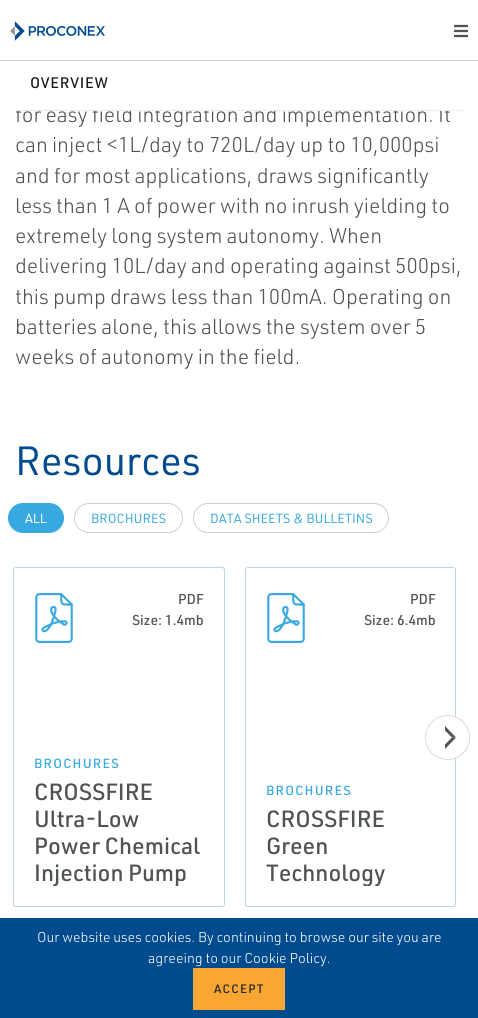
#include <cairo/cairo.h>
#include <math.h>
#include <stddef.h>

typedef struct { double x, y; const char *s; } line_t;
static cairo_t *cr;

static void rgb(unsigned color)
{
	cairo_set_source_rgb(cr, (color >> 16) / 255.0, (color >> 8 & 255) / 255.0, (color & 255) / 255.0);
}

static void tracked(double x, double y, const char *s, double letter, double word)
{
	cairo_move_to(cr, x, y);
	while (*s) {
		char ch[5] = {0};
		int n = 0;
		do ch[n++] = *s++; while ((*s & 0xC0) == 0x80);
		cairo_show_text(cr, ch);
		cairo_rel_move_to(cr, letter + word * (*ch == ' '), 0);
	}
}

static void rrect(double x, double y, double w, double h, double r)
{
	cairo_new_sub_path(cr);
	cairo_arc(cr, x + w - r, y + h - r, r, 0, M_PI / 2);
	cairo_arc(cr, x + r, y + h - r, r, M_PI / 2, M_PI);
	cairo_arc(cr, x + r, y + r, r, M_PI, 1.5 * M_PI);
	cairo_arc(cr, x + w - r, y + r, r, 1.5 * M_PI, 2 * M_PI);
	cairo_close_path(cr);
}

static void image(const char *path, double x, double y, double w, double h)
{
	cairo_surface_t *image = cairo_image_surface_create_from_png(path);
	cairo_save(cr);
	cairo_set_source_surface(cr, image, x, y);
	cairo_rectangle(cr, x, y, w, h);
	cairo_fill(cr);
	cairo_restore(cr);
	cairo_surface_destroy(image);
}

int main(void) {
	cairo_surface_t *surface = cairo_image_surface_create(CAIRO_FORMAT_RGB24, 478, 1018);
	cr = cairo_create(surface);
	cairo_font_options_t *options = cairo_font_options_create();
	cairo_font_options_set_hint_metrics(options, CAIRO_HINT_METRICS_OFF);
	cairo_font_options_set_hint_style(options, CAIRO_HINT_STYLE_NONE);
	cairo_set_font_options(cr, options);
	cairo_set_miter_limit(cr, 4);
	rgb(0xffffff);
	cairo_paint(cr);
	rgb(0xcacfd0);
	cairo_rectangle(cr, 0, 60, 478, 1);
	cairo_fill(cr);
	image("img/1.png", 10, 21, 95, 20);
	image("img/2.png", 454, 24, 14, 14);
	rgb(0x38a8e0);
	rrect(8.5, 503.5, 55, 29, 14.5);
	cairo_fill_preserve(cr);
	cairo_set_line_width(cr, 1);
	cairo_stroke(cr);
	rrect(74.5, 503.5, 108, 29, 14.5);
	rgb(0xcacfd0);
	cairo_stroke(cr);
	rrect(193.5, 503.5, 195, 29, 14.5);
	cairo_stroke(cr);
	rrect(13.5, 567.5, 211, 339, 2.5);
	rgb(0xbfd2e3);
	cairo_stroke(cr);
	image("img/3.png", 35, 593, 38, 50);
	rrect(245.5, 567.5, 210, 339, 2.5);
	cairo_stroke(cr);
	image("img/3.png", 267, 593, 38, 50);
	rgb(0xffffff);
	cairo_arc(cr, 447.5, 737.5, 22, 0, 2 * M_PI);
	cairo_fill_preserve(cr);
	rgb(0xdadbdb);
	cairo_stroke(cr);
	rgb(0x505354);
	cairo_new_path(cr);
	cairo_move_to(cr, 445, 726);
	cairo_line_to(cr, 456, 737.5);
	cairo_line_to(cr, 452, 737.5);
	cairo_line_to(cr, 445, 730.5);
	cairo_close_path(cr);
	cairo_fill(cr);
	cairo_new_path(cr);
	cairo_move_to(cr, 456, 737.5);
	cairo_line_to(cr, 445, 749);
	cairo_line_to(cr, 445, 744.5);
	cairo_line_to(cr, 452, 737.5);
	cairo_close_path(cr);
	cairo_fill(cr);
	rgb(0x004b8d);
	cairo_rectangle(cr, 0, 918, 478, 100);
	cairo_fill(cr);
	rgb(0xfaa634);
	cairo_rectangle(cr, 193, 968, 92, 42);
	cairo_fill(cr);
	cairo_select_font_face(cr, "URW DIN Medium", CAIRO_FONT_SLANT_NORMAL, CAIRO_FONT_WEIGHT_NORMAL);
	cairo_set_font_size(cr, 15);
	rgb(0x1c1c1c);
	tracked(30, 88, "OVERVIEW", 0.75, 0);
	cairo_select_font_face(cr, "URW DIN Light", CAIRO_FONT_SLANT_NORMAL, CAIRO_FONT_WEIGHT_NORMAL);
	cairo_set_font_size(cr, 21);
	rgb(0x505354);
	cairo_move_to(cr, 15, 122);
	cairo_show_text(cr, "for easy field integration and implementation. It");
	rgb(0xffffff);
	cairo_rectangle(cr, 17, 106, 431, 5);
	cairo_fill(cr);
	rgb(0xe5edf3);
	cairo_rectangle(cr, 15, 110, 448, 1);
	cairo_fill(cr);
	rgb(0x505354);
	{
		static const line_t items[] = {
			{15, 152, "can inject <1L/day to 720L/day up to 10,000psi"},
			{15, 183, "and for most applications, draws significantly"},
			{15, 213, "less than 1 A of power with no inrush yielding to"},
			{15, 243, "extremely long system autonomy. When"},
			{15, 273, "delivering 10L/day and operating against 500psi,"},
			{15, 304, "this pump draws less than 100mA. Operating on"},
			{15, 334, "batteries alone, this allows the system over 5"},
			{15, 364, "weeks of autonomy in the field."},
		};
		for (size_t i = 0; i < sizeof items / sizeof *items; i++) {
			cairo_move_to(cr, items[i].x, items[i].y);
			cairo_show_text(cr, items[i].s);
		}
	}
	cairo_select_font_face(cr, "URW DIN", CAIRO_FONT_SLANT_NORMAL, CAIRO_FONT_WEIGHT_NORMAL);
	cairo_set_font_size(cr, 40);
	rgb(0x004b8d);
	cairo_move_to(cr, 15, 475);
	cairo_show_text(cr, "Resources");
	cairo_set_font_size(cr, 13);
	rgb(0xffffff);
	cairo_move_to(cr, 25, 523);
	cairo_show_text(cr, "ALL");
	rgb(0x38a8e0);
	cairo_move_to(cr, 91, 523);
	cairo_show_text(cr, "BROCHURES");
	cairo_move_to(cr, 210, 523);
	cairo_show_text(cr, "DATA SHEETS & BULLETINS");
	cairo_select_font_face(cr, "URW DIN Medium", CAIRO_FONT_SLANT_NORMAL, CAIRO_FONT_WEIGHT_NORMAL);
	cairo_set_font_size(cr, 14);
	rgb(0x505354);
	cairo_move_to(cr, 178, 604);
	cairo_show_text(cr, "PDF");
	cairo_move_to(cr, 132, 625);
	cairo_show_text(cr, "Size: 1.4mb");
	cairo_set_font_size(cr, 13);
	rgb(0x38a8e0);
	tracked(34, 768, "BROCHURES", 1.25, 0);
	cairo_set_font_size(cr, 23);
	rgb(0x505354);
	{
		static const line_t items[] = {
			{34, 800, "CROSSFIRE"},
			{34, 827, "Ultra-Low"},
			{34, 854, "Power Chemical"},
		};
		for (size_t i = 0; i < sizeof items / sizeof *items; i++) {
			cairo_move_to(cr, items[i].x, items[i].y);
			cairo_show_text(cr, items[i].s);
		}
	}
	cairo_save(cr);
	cairo_rectangle(cr, 34, 778, 170, 108);
	cairo_clip(cr);
	cairo_move_to(cr, 34, 881);
	cairo_show_text(cr, "Injection Pump");
	cairo_restore(cr);
	cairo_set_font_size(cr, 14);
	cairo_move_to(cr, 410, 604);
	cairo_show_text(cr, "PDF");
	cairo_move_to(cr, 364, 625);
	cairo_show_text(cr, "Size: 6.4mb");
	cairo_set_font_size(cr, 13);
	rgb(0x38a8e0);
	tracked(266, 795, "BROCHURES", 1.25, 0);
	cairo_set_font_size(cr, 23);
	rgb(0x505354);
	cairo_move_to(cr, 266, 827);
	cairo_show_text(cr, "CROSSFIRE");
	cairo_move_to(cr, 266, 854);
	cairo_show_text(cr, "Green");
	cairo_save(cr);
	cairo_rectangle(cr, 266, 805, 169, 81);
	cairo_clip(cr);
	cairo_move_to(cr, 266, 881);
	cairo_show_text(cr, "Technology");
	cairo_restore(cr);
	cairo_select_font_face(cr, "URW DIN Light", CAIRO_FONT_SLANT_NORMAL, CAIRO_FONT_WEIGHT_NORMAL);
	cairo_set_font_size(cr, 14);
	rgb(0xffffff);
	cairo_move_to(cr, 37, 942);
	cairo_show_text(cr, "Our website uses cookies. By continuing to browse our site you are");
	cairo_move_to(cr, 148, 963);
	cairo_show_text(cr, "agreeing to our Cookie Policy.");
	cairo_select_font_face(cr, "URW DIN Medium", CAIRO_FONT_SLANT_NORMAL, CAIRO_FONT_WEIGHT_NORMAL);
	cairo_set_font_size(cr, 12);
	rgb(0x212529);
	tracked(214, 993, "ACCEPT", 1.25, 0);
	cairo_surface_write_to_png(surface, "page.png");
	cairo_font_options_destroy(options);
	cairo_destroy(cr);
	cairo_surface_destroy(surface);
	return 0;
}
